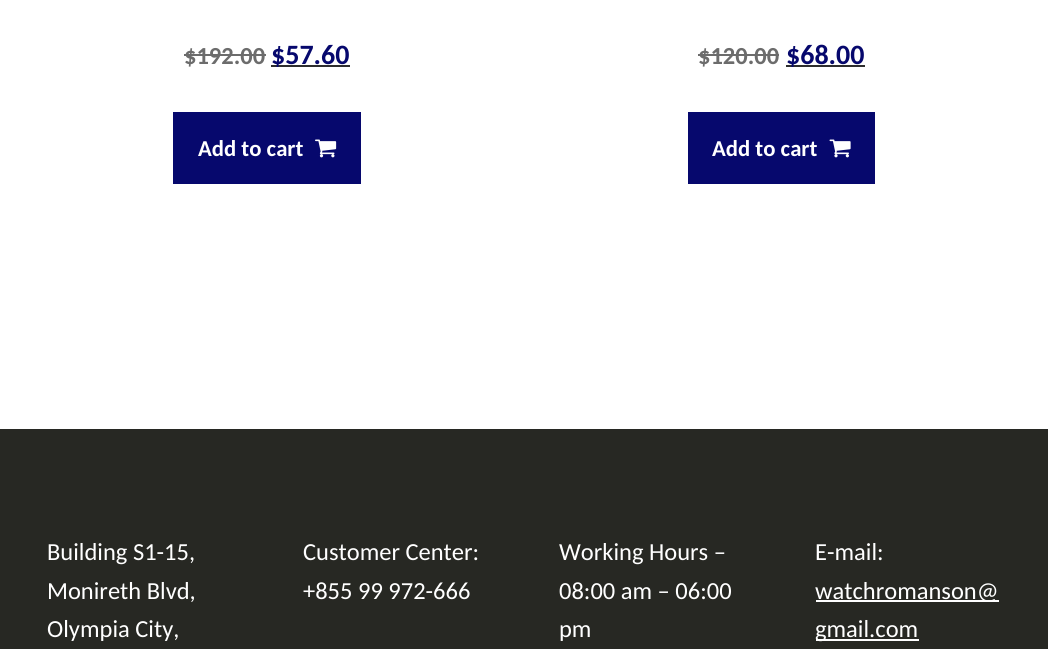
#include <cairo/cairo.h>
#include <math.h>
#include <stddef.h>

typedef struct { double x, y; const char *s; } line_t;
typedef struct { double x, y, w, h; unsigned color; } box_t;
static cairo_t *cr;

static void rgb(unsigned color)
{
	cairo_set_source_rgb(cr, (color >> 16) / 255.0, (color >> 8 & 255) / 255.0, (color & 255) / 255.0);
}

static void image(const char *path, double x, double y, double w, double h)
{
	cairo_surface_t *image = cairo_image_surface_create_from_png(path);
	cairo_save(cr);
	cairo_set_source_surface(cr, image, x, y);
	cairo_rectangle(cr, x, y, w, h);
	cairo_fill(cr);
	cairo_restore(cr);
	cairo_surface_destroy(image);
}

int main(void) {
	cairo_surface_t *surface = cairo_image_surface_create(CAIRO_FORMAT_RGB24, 1048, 649);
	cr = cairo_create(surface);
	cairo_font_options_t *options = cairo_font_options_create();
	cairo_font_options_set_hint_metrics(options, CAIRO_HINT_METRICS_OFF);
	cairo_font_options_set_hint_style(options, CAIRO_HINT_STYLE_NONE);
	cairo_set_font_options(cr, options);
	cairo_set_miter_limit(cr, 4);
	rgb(0xffffff);
	cairo_paint(cr);
	{
		static const box_t items[] = {
			{184, 54, 82, 2, 0x6c6c6c},
			{271, 65, 79, 2, 0x2d2d2d},
			{173, 112, 188, 72, 0x06086d},
		};
		for (size_t i = 0; i < sizeof items / sizeof *items; i++) {
			rgb(items[i].color);
			cairo_rectangle(cr, items[i].x, items[i].y, items[i].w, items[i].h);
			cairo_fill(cr);
		}
	}
	image("img/1.png", 315, 139, 22, 19);
	{
		static const box_t items[] = {
			{698, 54, 81, 2, 0x6c6c6c},
			{786, 65, 79, 2, 0x2d2d2d},
			{688, 112, 187, 72, 0x06086d},
		};
		for (size_t i = 0; i < sizeof items / sizeof *items; i++) {
			rgb(items[i].color);
			cairo_rectangle(cr, items[i].x, items[i].y, items[i].w, items[i].h);
			cairo_fill(cr);
		}
	}
	image("img/2.png", 829, 139, 22, 19);
	{
		static const box_t items[] = {
			{0, 429, 1048, 220, 0x272823},
			{816, 600, 183, 2, 0xffffff},
			{816, 639, 103, 2, 0xffffff},
		};
		for (size_t i = 0; i < sizeof items / sizeof *items; i++) {
			rgb(items[i].color);
			cairo_rectangle(cr, items[i].x, items[i].y, items[i].w, items[i].h);
			cairo_fill(cr);
		}
	}
	cairo_select_font_face(cr, "Carlito", CAIRO_FONT_SLANT_NORMAL, CAIRO_FONT_WEIGHT_BOLD);
	cairo_set_font_size(cr, 24.5);
	rgb(0x6c6c6c);
	cairo_move_to(cr, 184, 64);
	cairo_show_text(cr, "$192.00");
	cairo_set_font_size(cr, 28);
	rgb(0x06086d);
	cairo_move_to(cr, 271, 64);
	cairo_show_text(cr, "$57.60");
	cairo_set_font_size(cr, 22.75);
	rgb(0xffffff);
	cairo_move_to(cr, 198, 156);
	cairo_show_text(cr, "Add to cart");
	cairo_set_font_size(cr, 24.5);
	rgb(0x6c6c6c);
	cairo_move_to(cr, 698, 64);
	cairo_show_text(cr, "$120.00");
	cairo_set_font_size(cr, 28);
	rgb(0x06086d);
	cairo_move_to(cr, 786, 64);
	cairo_show_text(cr, "$68.00");
	cairo_set_font_size(cr, 22.75);
	rgb(0xffffff);
	cairo_move_to(cr, 712, 156);
	cairo_show_text(cr, "Add to cart");
	cairo_select_font_face(cr, "Carlito", CAIRO_FONT_SLANT_NORMAL, CAIRO_FONT_WEIGHT_NORMAL);
	cairo_set_font_size(cr, 24.5);
	{
		static const line_t items[] = {
			{47, 560, "Building S1-15,"},
			{47, 599, "Monireth Blvd,"},
			{47, 637, "Olympia City,"},
			{303, 560, "Customer Center:"},
			{303, 599, "+855 99 972-666"},
			{559, 560, "Working Hours –"},
			{559, 599, "08:00 am – 06:00"},
			{559, 637, "pm"},
			{815, 560, "E-mail:"},
			{815, 599, "watchromanson@"},
			{815, 637, "gmail.com"},
		};
		for (size_t i = 0; i < sizeof items / sizeof *items; i++) {
			cairo_move_to(cr, items[i].x, items[i].y);
			cairo_show_text(cr, items[i].s);
		}
	}
	cairo_surface_write_to_png(surface, "page.png");
	cairo_font_options_destroy(options);
	cairo_destroy(cr);
	cairo_surface_destroy(surface);
	return 0;
}
